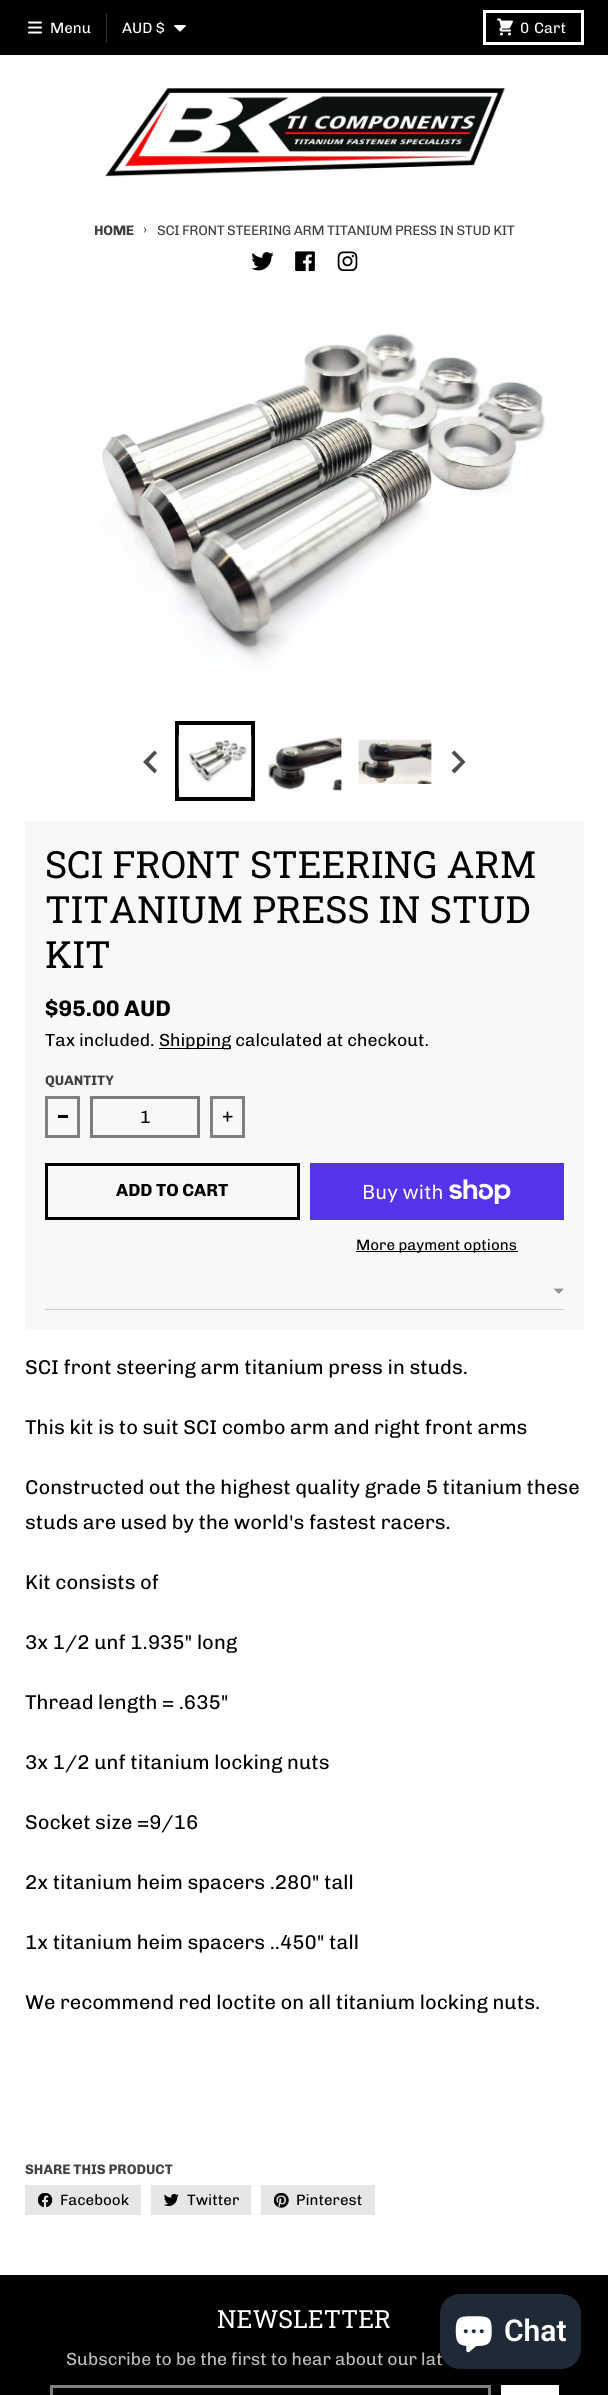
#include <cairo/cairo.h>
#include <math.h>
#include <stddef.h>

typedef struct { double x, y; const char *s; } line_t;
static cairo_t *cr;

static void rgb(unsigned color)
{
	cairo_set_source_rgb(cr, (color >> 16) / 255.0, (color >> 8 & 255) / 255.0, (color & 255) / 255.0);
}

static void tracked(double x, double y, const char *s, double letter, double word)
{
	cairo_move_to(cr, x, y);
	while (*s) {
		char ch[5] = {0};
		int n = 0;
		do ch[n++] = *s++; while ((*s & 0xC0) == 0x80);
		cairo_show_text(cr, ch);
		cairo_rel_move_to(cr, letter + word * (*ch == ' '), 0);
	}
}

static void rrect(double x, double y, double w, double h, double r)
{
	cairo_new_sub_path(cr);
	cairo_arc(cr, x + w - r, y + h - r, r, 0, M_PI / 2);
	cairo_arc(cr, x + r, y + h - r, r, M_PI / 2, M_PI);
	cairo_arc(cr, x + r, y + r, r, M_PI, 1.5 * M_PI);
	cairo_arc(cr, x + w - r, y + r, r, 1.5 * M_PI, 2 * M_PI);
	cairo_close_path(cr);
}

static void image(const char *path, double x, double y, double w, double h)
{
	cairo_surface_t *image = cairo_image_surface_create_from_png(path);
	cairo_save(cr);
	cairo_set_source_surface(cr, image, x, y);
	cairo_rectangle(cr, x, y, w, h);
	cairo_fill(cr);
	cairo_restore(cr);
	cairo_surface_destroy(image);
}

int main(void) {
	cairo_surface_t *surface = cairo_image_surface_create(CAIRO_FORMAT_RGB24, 608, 2395);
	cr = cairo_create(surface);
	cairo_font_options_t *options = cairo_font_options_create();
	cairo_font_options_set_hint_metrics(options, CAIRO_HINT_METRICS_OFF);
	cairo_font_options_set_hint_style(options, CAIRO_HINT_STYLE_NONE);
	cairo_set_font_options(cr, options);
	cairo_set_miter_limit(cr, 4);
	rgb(0x000000);
	cairo_paint(cr);
	image("img/1.png", 28, 21, 14, 13);
	rgb(0x333333);
	cairo_rectangle(cr, 106, 13, 1, 30);
	cairo_fill(cr);
	image("img/2.png", 174, 25, 12, 7);
	cairo_rectangle(cr, 484.5, 11.5, 98, 32);
	rgb(0xffffff);
	cairo_set_line_width(cr, 3);
	cairo_stroke(cr);
	image("img/3.png", 497, 18, 16, 18);
	cairo_rectangle(cr, 0, 55, 608, 2220);
	cairo_fill(cr);
	image("img/4.png", 105, 87, 401, 90);
	image("img/5.png", 251, 252, 23, 19);
	image("img/6.png", 295, 251, 20, 21);
	image("img/7.png", 337, 251, 21, 20);
	image("img/8.png", 102, 333, 444, 337);
	cairo_rectangle(cr, 177, 723, 76, 76);
	rgb(0x000000);
	cairo_set_line_width(cr, 4);
	cairo_stroke(cr);
	image("img/9.png", 178, 734, 74, 55);
	image("img/10.png", 268, 737, 74, 54);
	image("img/11.png", 358, 739, 74, 45);
	rgb(0x4d4d4d);
	cairo_new_path(cr);
	cairo_move_to(cr, 154.5, 750.5);
	cairo_line_to(cr, 157, 753);
	cairo_line_to(cr, 148.5, 762);
	cairo_line_to(cr, 157, 770.5);
	cairo_line_to(cr, 154.5, 773.5);
	cairo_line_to(cr, 143, 762);
	cairo_close_path(cr);
	cairo_fill(cr);
	cairo_new_path(cr);
	cairo_move_to(cr, 454.5, 750.5);
	cairo_line_to(cr, 451.5, 753);
	cairo_line_to(cr, 460.5, 762);
	cairo_line_to(cr, 451.5, 770.5);
	cairo_line_to(cr, 454.5, 773.5);
	cairo_line_to(cr, 465.5, 762);
	cairo_close_path(cr);
	cairo_fill(cr);
	rgb(0xf8f8f8);
	cairo_rectangle(cr, 25, 821, 559, 509);
	cairo_fill(cr);
	rgb(0x000000);
	cairo_rectangle(cr, 159, 1048, 72, 1);
	cairo_fill(cr);
	cairo_rectangle(cr, 46.5, 1097.5, 32, 39);
	rgb(0x808080);
	cairo_set_line_width(cr, 3);
	cairo_stroke(cr);
	rgb(0x000000);
	cairo_rectangle(cr, 58, 1115, 10, 3);
	cairo_fill(cr);
	cairo_rectangle(cr, 91.5, 1097.5, 107, 39);
	rgb(0x7c7c7c);
	cairo_stroke(cr);
	cairo_rectangle(cr, 211.5, 1097.5, 32, 39);
	rgb(0x808080);
	cairo_stroke(cr);
	image("img/12.png", 223, 1111, 10, 11);
	cairo_rectangle(cr, 46.5, 1164.5, 252, 54);
	rgb(0x000000);
	cairo_stroke(cr);
	rgb(0x5433eb);
	cairo_rectangle(cr, 310, 1163, 254, 57);
	cairo_fill(cr);
	image("img/13.png", 449, 1179, 62, 25);
	rgb(0x000000);
	cairo_rectangle(cr, 356, 1251, 162, 1);
	cairo_fill(cr);
	rgb(0xcccccc);
	cairo_rectangle(cr, 45, 1309, 519, 1);
	cairo_fill(cr);
	image("img/14.png", 554, 1288, 10, 6);
	rgb(0xe6e6e6);
	cairo_rectangle(cr, 25, 2185, 116, 30);
	cairo_fill(cr);
	image("img/15.png", 38, 2193, 15, 15);
	cairo_rectangle(cr, 151, 2185, 100, 30);
	cairo_fill(cr);
	image("img/16.png", 164, 2193, 15, 14);
	cairo_rectangle(cr, 261, 2185, 114, 30);
	cairo_fill(cr);
	image("img/17.png", 274, 2193, 15, 15);
	cairo_rectangle(cr, 51.5, 2386.5, 438, 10);
	rgb(0x808080);
	cairo_stroke(cr);
	rgb(0xffffff);
	cairo_rectangle(cr, 501, 2385, 58, 10);
	cairo_fill(cr);
	cairo_select_font_face(cr, "Chivo", CAIRO_FONT_SLANT_NORMAL, CAIRO_FONT_WEIGHT_NORMAL);
	cairo_set_font_size(cr, 15);
	{
		static const line_t items[] = {
			{50, 33, "Menu"},
			{122, 33, "AUD $"},
			{520, 33, "0"},
			{534, 33, "Cart"},
		};
		for (size_t i = 0; i < sizeof items / sizeof *items; i++) {
			cairo_move_to(cr, items[i].x, items[i].y);
			cairo_show_text(cr, items[i].s);
		}
	}
	cairo_select_font_face(cr, "Chivo", CAIRO_FONT_SLANT_NORMAL, CAIRO_FONT_WEIGHT_BOLD);
	cairo_set_font_size(cr, 13.75);
	rgb(0x404040);
	tracked(94, 235, "HOME", -0.35, 0);
	cairo_select_font_face(cr, "Chivo", CAIRO_FONT_SLANT_NORMAL, CAIRO_FONT_WEIGHT_NORMAL);
	cairo_set_font_size(cr, 15);
	tracked(143, 235, "›", -0.35, 0);
	cairo_set_font_size(cr, 13.75);
	tracked(157, 235, "SCI FRONT STEERING ARM TITANIUM PRESS IN STUD KIT", -0.35, 0);
	cairo_select_font_face(cr, "Roboto Slab", CAIRO_FONT_SLANT_NORMAL, CAIRO_FONT_WEIGHT_NORMAL);
	cairo_set_font_size(cr, 37.5);
	rgb(0x000000);
	{
		static const line_t items[] = {
			{45, 878, "SCI FRONT STEERING ARM"},
			{45, 923, "TITANIUM PRESS IN STUD"},
			{45, 968, "KIT"},
		};
		for (size_t i = 0; i < sizeof items / sizeof *items; i++) {
			cairo_move_to(cr, items[i].x, items[i].y);
			cairo_show_text(cr, items[i].s);
		}
	}
	cairo_select_font_face(cr, "Chivo", CAIRO_FONT_SLANT_NORMAL, CAIRO_FONT_WEIGHT_BOLD);
	cairo_set_font_size(cr, 22.5);
	cairo_move_to(cr, 45, 1016);
	cairo_show_text(cr, "$95.00 AUD");
	cairo_select_font_face(cr, "Chivo", CAIRO_FONT_SLANT_NORMAL, CAIRO_FONT_WEIGHT_NORMAL);
	cairo_set_font_size(cr, 17.5);
	cairo_move_to(cr, 45, 1046);
	cairo_show_text(cr, "Tax included.");
	cairo_move_to(cr, 159, 1046);
	cairo_show_text(cr, "Shipping calculated at checkout.");
	cairo_select_font_face(cr, "Chivo", CAIRO_FONT_SLANT_NORMAL, CAIRO_FONT_WEIGHT_BOLD);
	cairo_set_font_size(cr, 13.75);
	rgb(0x404040);
	cairo_move_to(cr, 45, 1085);
	cairo_show_text(cr, "QUANTITY");
	cairo_select_font_face(cr, "Chivo", CAIRO_FONT_SLANT_NORMAL, CAIRO_FONT_WEIGHT_NORMAL);
	cairo_set_font_size(cr, 17.5);
	rgb(0x000000);
	cairo_move_to(cr, 140, 1123);
	cairo_show_text(cr, "1");
	cairo_select_font_face(cr, "Chivo", CAIRO_FONT_SLANT_NORMAL, CAIRO_FONT_WEIGHT_BOLD);
	cairo_move_to(cr, 116, 1196);
	cairo_show_text(cr, "ADD TO CART");
	cairo_select_font_face(cr, "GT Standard", CAIRO_FONT_SLANT_NORMAL, CAIRO_FONT_WEIGHT_NORMAL);
	cairo_set_font_size(cr, 20);
	rgb(0xffffff);
	cairo_move_to(cr, 362, 1199);
	cairo_show_text(cr, "Buy with");
	cairo_select_font_face(cr, "Chivo", CAIRO_FONT_SLANT_NORMAL, CAIRO_FONT_WEIGHT_NORMAL);
	cairo_set_font_size(cr, 15);
	rgb(0x000000);
	cairo_move_to(cr, 356, 1250);
	cairo_show_text(cr, "More payment options");
	cairo_set_font_size(cr, 20);
	{
		static const line_t items[] = {
			{25, 1374, "SCI front steering arm titanium press in studs."},
			{25, 1434, "This kit is to suit SCI combo arm and right front arms"},
			{25, 1494, "Constructed out the highest quality grade 5 titanium these"},
			{25, 1529, "studs are used by the world's fastest racers."},
			{25, 1589, "Kit consists of"},
			{25, 1649, "3x 1/2 unf 1.935\" long"},
			{25, 1709, "Thread length = .635\""},
			{25, 1769, "3x 1/2 unf titanium locking nuts"},
			{25, 1829, "Socket size =9/16"},
			{25, 1889, "2x titanium heim spacers .280\" tall"},
			{25, 1949, "1x titanium heim spacers ..450\" tall"},
			{25, 2009, "We recommend red loctite on all titanium locking nuts."},
		};
		for (size_t i = 0; i < sizeof items / sizeof *items; i++) {
			cairo_move_to(cr, items[i].x, items[i].y);
			cairo_show_text(cr, items[i].s);
		}
	}
	cairo_select_font_face(cr, "Chivo", CAIRO_FONT_SLANT_NORMAL, CAIRO_FONT_WEIGHT_BOLD);
	cairo_set_font_size(cr, 13.75);
	rgb(0x404040);
	cairo_move_to(cr, 25, 2174);
	cairo_show_text(cr, "SHARE THIS PRODUCT");
	cairo_select_font_face(cr, "Chivo", CAIRO_FONT_SLANT_NORMAL, CAIRO_FONT_WEIGHT_NORMAL);
	cairo_set_font_size(cr, 15);
	rgb(0x000000);
	{
		static const line_t items[] = {
			{60, 2205, "Facebook"},
			{187, 2205, "Twitter"},
			{296, 2205, "Pinterest"},
		};
		for (size_t i = 0; i < sizeof items / sizeof *items; i++) {
			cairo_move_to(cr, items[i].x, items[i].y);
			cairo_show_text(cr, items[i].s);
		}
	}
	cairo_select_font_face(cr, "Roboto Slab", CAIRO_FONT_SLANT_NORMAL, CAIRO_FONT_WEIGHT_NORMAL);
	cairo_set_font_size(cr, 25);
	rgb(0xffffff);
	cairo_move_to(cr, 217, 2328);
	cairo_show_text(cr, "NEWSLETTER");
	cairo_select_font_face(cr, "Chivo", CAIRO_FONT_SLANT_NORMAL, CAIRO_FONT_WEIGHT_NORMAL);
	cairo_set_font_size(cr, 17.5);
	rgb(0xbfbfbf);
	cairo_move_to(cr, 66, 2365);
	cairo_show_text(cr, "Subscribe to be the first to hear about our lat");
	rgb(0x202a36);
	rrect(440, 2294, 141, 75, 20);
	cairo_fill(cr);
	image("img/18.png", 455, 2316, 37, 37);
	cairo_select_font_face(cr, "Roboto SemiBold", CAIRO_FONT_SLANT_NORMAL, CAIRO_FONT_WEIGHT_NORMAL);
	cairo_set_font_size(cr, 30);
	rgb(0xffffff);
	cairo_move_to(cr, 504, 2341);
	cairo_show_text(cr, "Chat");
	cairo_surface_write_to_png(surface, "page.png");
	cairo_font_options_destroy(options);
	cairo_destroy(cr);
	cairo_surface_destroy(surface);
	return 0;
}
